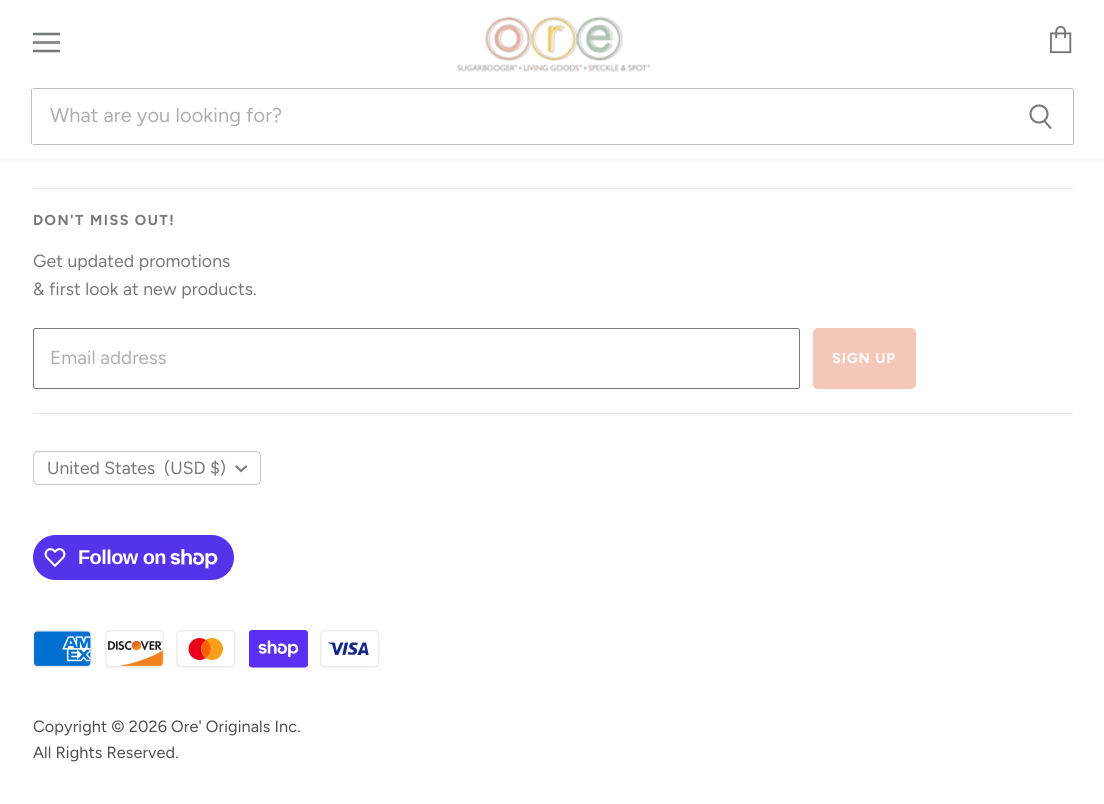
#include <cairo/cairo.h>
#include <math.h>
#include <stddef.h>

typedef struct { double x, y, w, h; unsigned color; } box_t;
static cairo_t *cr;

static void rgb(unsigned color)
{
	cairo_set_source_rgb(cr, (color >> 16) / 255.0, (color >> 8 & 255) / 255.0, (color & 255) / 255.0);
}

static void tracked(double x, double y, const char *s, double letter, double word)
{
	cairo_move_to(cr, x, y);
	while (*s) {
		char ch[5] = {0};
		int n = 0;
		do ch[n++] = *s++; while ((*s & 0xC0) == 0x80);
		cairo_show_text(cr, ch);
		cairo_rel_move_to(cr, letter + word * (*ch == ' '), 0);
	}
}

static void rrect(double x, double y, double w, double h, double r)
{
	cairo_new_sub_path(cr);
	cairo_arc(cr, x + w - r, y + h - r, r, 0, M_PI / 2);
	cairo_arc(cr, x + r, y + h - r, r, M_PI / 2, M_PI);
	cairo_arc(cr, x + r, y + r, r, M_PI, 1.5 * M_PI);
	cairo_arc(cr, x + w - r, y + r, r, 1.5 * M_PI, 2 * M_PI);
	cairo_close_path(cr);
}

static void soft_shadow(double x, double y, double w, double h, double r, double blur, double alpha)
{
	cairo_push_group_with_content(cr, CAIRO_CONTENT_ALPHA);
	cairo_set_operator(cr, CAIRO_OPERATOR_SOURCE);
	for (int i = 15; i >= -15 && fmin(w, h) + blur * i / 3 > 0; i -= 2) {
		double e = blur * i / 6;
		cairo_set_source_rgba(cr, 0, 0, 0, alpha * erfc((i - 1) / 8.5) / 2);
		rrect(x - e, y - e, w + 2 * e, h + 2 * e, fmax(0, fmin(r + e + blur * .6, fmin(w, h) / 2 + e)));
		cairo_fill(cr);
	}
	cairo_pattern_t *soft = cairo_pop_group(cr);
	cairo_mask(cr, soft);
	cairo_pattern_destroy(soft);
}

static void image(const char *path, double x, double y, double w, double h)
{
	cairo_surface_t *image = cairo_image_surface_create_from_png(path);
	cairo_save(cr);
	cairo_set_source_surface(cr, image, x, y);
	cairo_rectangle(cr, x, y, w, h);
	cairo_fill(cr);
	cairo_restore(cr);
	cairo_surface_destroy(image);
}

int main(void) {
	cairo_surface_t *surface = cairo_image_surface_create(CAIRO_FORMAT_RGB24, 1104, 804);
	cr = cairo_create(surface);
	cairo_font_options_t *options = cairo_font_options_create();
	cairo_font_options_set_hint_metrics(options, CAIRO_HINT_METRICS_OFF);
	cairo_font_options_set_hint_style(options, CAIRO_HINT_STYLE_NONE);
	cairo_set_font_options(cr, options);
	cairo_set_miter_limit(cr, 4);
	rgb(0xffffff);
	cairo_paint(cr);
	rgb(0xbac0be);
	soft_shadow(0, 1, 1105, 158, 0, 2.5, 0.25);
	rgb(0xffffff);
	cairo_rectangle(cr, 0, 0, 1104, 158);
	cairo_fill(cr);
	cairo_save(cr);
	cairo_rectangle(cr, 33, 31, 27, 23);
	cairo_clip(cr);
	cairo_new_path(cr);
	cairo_move_to(cr, 59, 34);
	cairo_line_to(cr, 34, 34);
	rgb(0x757977);
	cairo_set_line_width(cr, 2.5);
	cairo_set_line_cap(cr, CAIRO_LINE_CAP_SQUARE);
	cairo_set_line_join(cr, CAIRO_LINE_JOIN_ROUND);
	cairo_stroke(cr);
	cairo_restore(cr);
	rgb(0x8c8f8e);
	cairo_rectangle(cr, 33, 41, 27, 3);
	cairo_fill(cr);
	cairo_save(cr);
	cairo_rectangle(cr, 33, 31, 27, 23);
	cairo_clip(cr);
	cairo_new_path(cr);
	cairo_move_to(cr, 59, 51);
	cairo_line_to(cr, 34, 51);
	rgb(0x757977);
	cairo_set_line_width(cr, 2.5);
	cairo_set_line_cap(cr, CAIRO_LINE_CAP_SQUARE);
	cairo_set_line_join(cr, CAIRO_LINE_JOIN_ROUND);
	cairo_stroke(cr);
	cairo_restore(cr);
	image("img/1.png", 1050, 25, 22, 29);
	image("img/2.png", 456, 16, 195, 56);
	{
		static const box_t items[] = {
			{33, 88, 1040, 1, 0xbac0be},
			{1073, 89, 1, 55, 0xbac0be},
			{33, 144, 1040, 1, 0xbac0be},
		};
		for (size_t i = 0; i < sizeof items / sizeof *items; i++) {
			rgb(items[i].color);
			cairo_rectangle(cr, items[i].x, items[i].y, items[i].w, items[i].h);
			cairo_fill(cr);
		}
	}
	cairo_new_path(cr);
	cairo_move_to(cr, 1051, 128.5);
	cairo_line_to(cr, 1044, 120.5);
	rgb(0x757977);
	cairo_set_line_width(cr, 2.1);
	cairo_stroke(cr);
	cairo_arc(cr, 1039, 114, 8.5, 0, 2 * M_PI);
	cairo_stroke(cr);
	{
		static const box_t items[] = {
			{31, 89, 1, 55, 0xbac0be},
			{33, 188, 1040, 1, 0xe3e4e4},
			{33, 413, 1040, 1, 0xe3e4e4},
		};
		for (size_t i = 0; i < sizeof items / sizeof *items; i++) {
			rgb(items[i].color);
			cairo_rectangle(cr, items[i].x, items[i].y, items[i].w, items[i].h);
			cairo_fill(cr);
		}
	}
	rrect(33.5, 328.5, 766, 60, 2);
	rgb(0x757977);
	cairo_set_line_width(cr, 1);
	cairo_stroke(cr);
	rgb(0xf5c7b8);
	rrect(813.5, 328.5, 102, 60, 4.5);
	cairo_fill_preserve(cr);
	cairo_stroke(cr);
	rrect(33.5, 451.5, 227, 33, 4.5);
	rgb(0xc8c9c9);
	cairo_stroke(cr);
	cairo_new_path(cr);
	cairo_move_to(cr, 241, 471);
	cairo_line_to(cr, 246, 466.5);
	cairo_move_to(cr, 241, 471);
	cairo_line_to(cr, 236.5, 466.5);
	rgb(0x757977);
	cairo_set_line_width(cr, 2);
	cairo_set_line_cap(cr, CAIRO_LINE_CAP_SQUARE);
	cairo_stroke(cr);
	rgb(0x5433eb);
	rrect(33, 535, 201, 45, 22.5);
	cairo_fill(cr);
	image("img/3.png", 44, 548, 22, 19);
	image("img/4.png", 170, 549, 48, 20);
	image("img/5.png", 33, 630, 59, 38);
	image("img/6.png", 105, 630, 59, 38);
	image("img/7.png", 176, 630, 60, 38);
	image("img/8.png", 249, 630, 59, 38);
	image("img/9.png", 320, 630, 60, 38);
	cairo_select_font_face(cr, "Figtree", CAIRO_FONT_SLANT_NORMAL, CAIRO_FONT_WEIGHT_NORMAL);
	cairo_set_font_size(cr, 20);
	rgb(0xacafad);
	tracked(50, 122, "What are you looking for?", 0.1, 0);
	cairo_select_font_face(cr, "Figtree", CAIRO_FONT_SLANT_NORMAL, CAIRO_FONT_WEIGHT_BOLD);
	cairo_set_font_size(cr, 14.4);
	rgb(0x757977);
	tracked(33, 225, "DON'T MISS OUT!", 1.5, 0);
	cairo_select_font_face(cr, "Figtree", CAIRO_FONT_SLANT_NORMAL, CAIRO_FONT_WEIGHT_NORMAL);
	cairo_set_font_size(cr, 17.6);
	tracked(33, 267, "Get updated promotions", 0.1, 0);
	tracked(33, 295, "& first look at new products.", 0.1, 0);
	cairo_set_font_size(cr, 18.75);
	rgb(0xacafad);
	tracked(50, 364, "Email address", 0.1, 0);
	cairo_select_font_face(cr, "Figtree", CAIRO_FONT_SLANT_NORMAL, CAIRO_FONT_WEIGHT_BOLD);
	cairo_set_font_size(cr, 14.4);
	rgb(0xffffff);
	tracked(832, 363, "SIGN UP", 1, 0);
	cairo_select_font_face(cr, "Figtree", CAIRO_FONT_SLANT_NORMAL, CAIRO_FONT_WEIGHT_NORMAL);
	cairo_set_font_size(cr, 17.6);
	rgb(0x757977);
	cairo_move_to(cr, 47, 474);
	cairo_show_text(cr, "United States");
	cairo_move_to(cr, 164, 474);
	cairo_show_text(cr, "(USD $)");
	cairo_select_font_face(cr, "Liberation Sans", CAIRO_FONT_SLANT_NORMAL, CAIRO_FONT_WEIGHT_BOLD);
	cairo_set_font_size(cr, 20);
	rgb(0xffffff);
	tracked(78, 564, "Follow on", -0.6, 0);
	cairo_select_font_face(cr, "Figtree", CAIRO_FONT_SLANT_NORMAL, CAIRO_FONT_WEIGHT_NORMAL);
	cairo_set_font_size(cr, 16.25);
	rgb(0x494e4d);
	tracked(33, 732, "Copyright © 2026 Ore' Originals Inc.", 0.1, 0);
	tracked(33, 758, "All Rights Reserved.", 0.1, 0);
	cairo_surface_write_to_png(surface, "page.png");
	cairo_font_options_destroy(options);
	cairo_destroy(cr);
	cairo_surface_destroy(surface);
	return 0;
}
